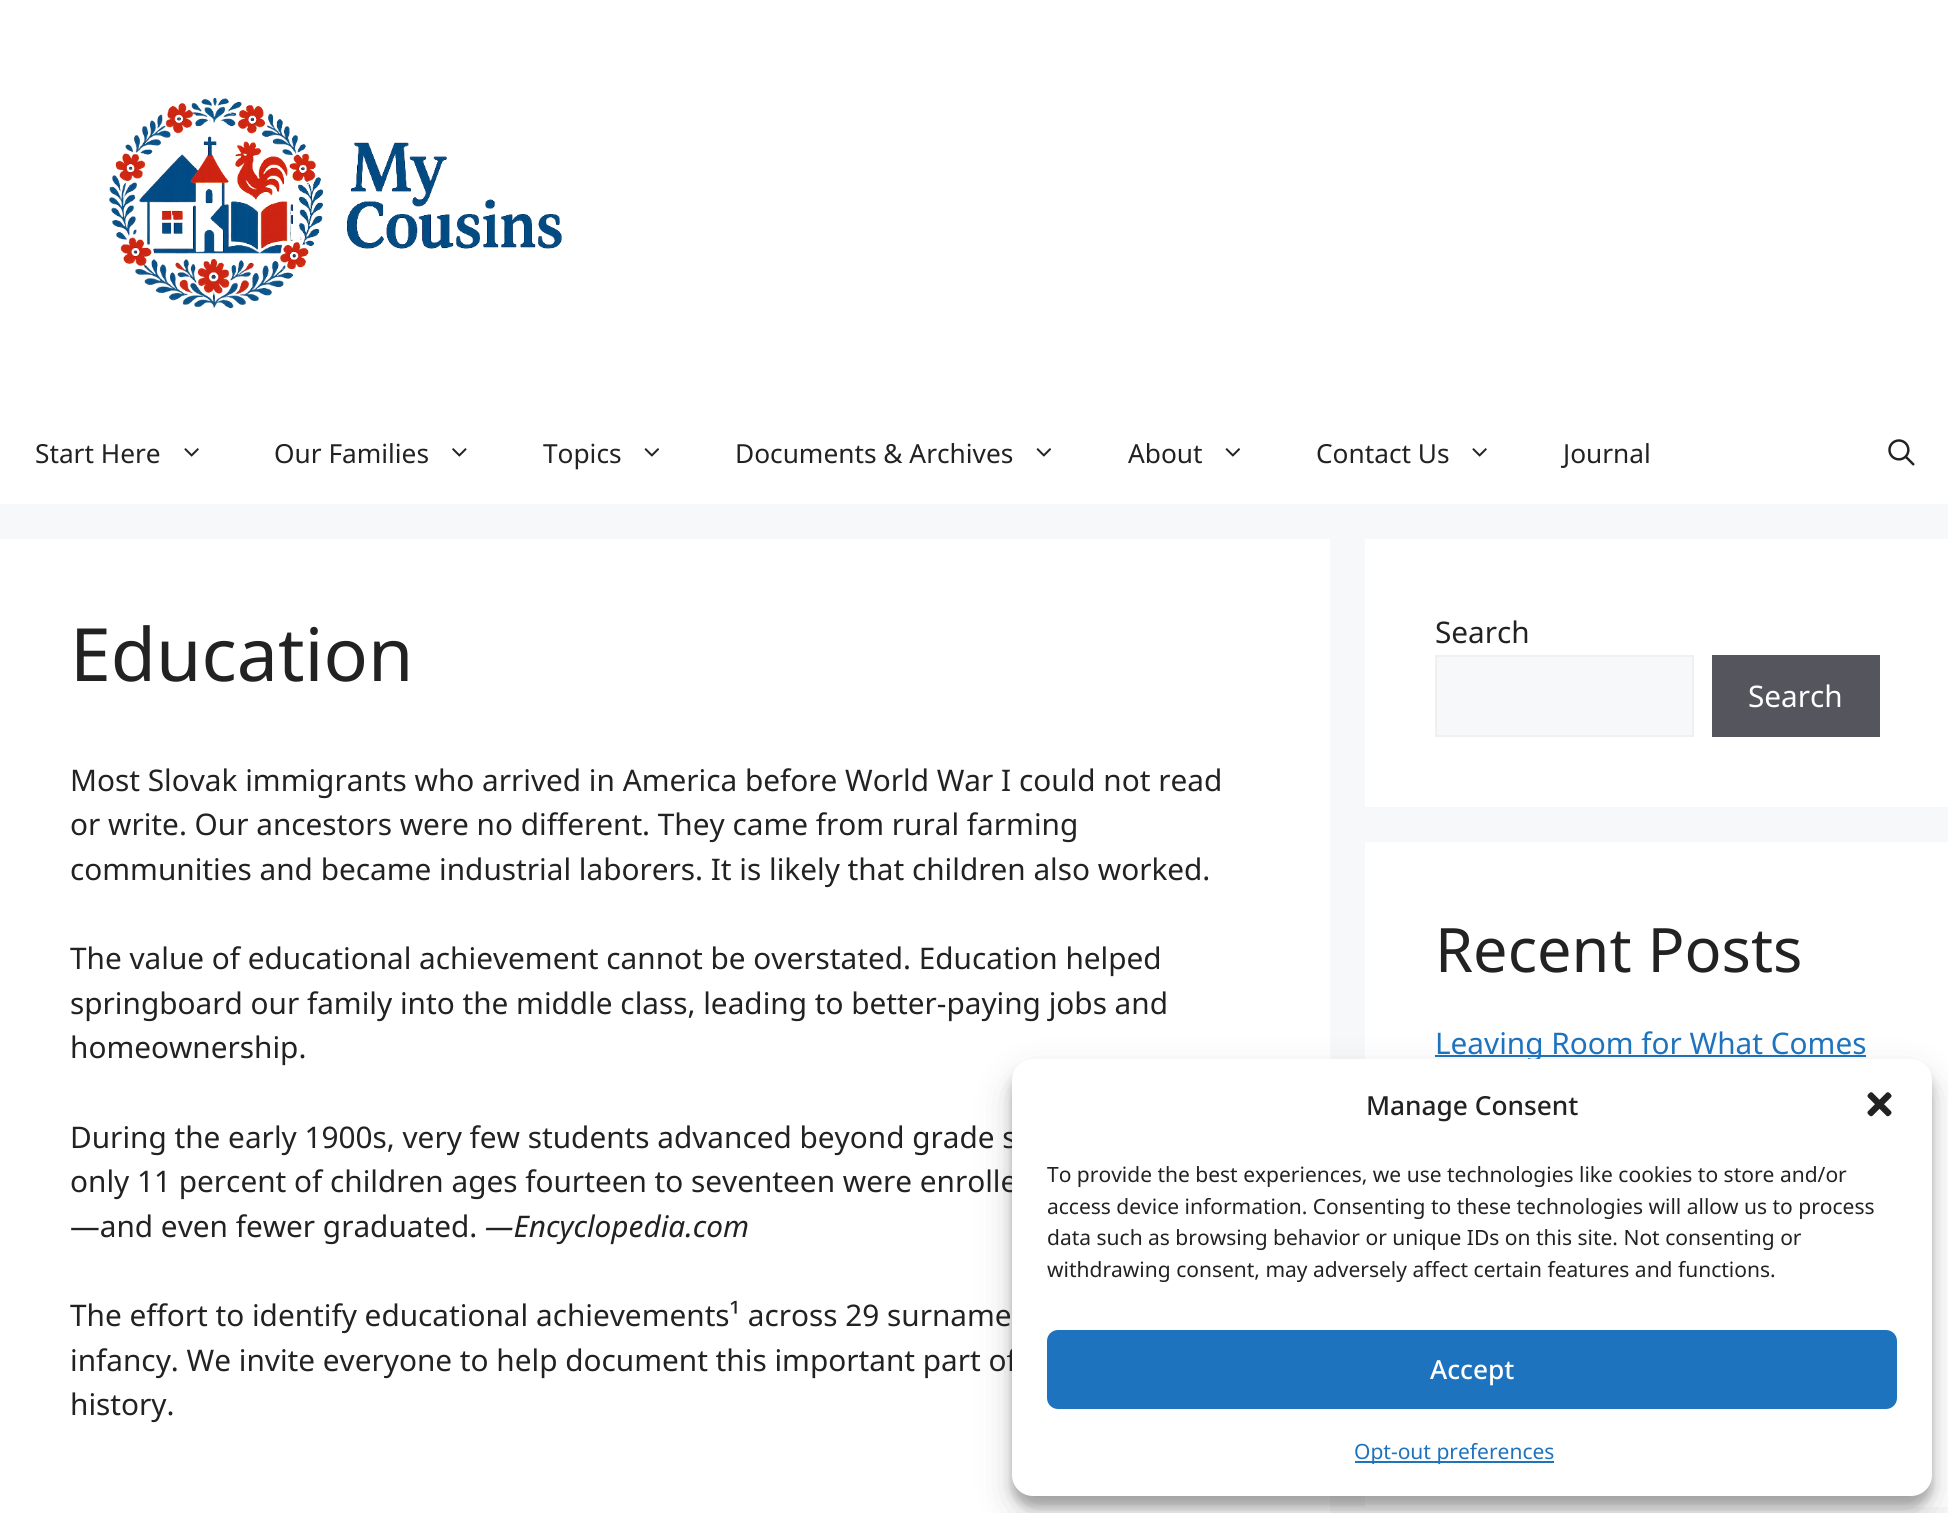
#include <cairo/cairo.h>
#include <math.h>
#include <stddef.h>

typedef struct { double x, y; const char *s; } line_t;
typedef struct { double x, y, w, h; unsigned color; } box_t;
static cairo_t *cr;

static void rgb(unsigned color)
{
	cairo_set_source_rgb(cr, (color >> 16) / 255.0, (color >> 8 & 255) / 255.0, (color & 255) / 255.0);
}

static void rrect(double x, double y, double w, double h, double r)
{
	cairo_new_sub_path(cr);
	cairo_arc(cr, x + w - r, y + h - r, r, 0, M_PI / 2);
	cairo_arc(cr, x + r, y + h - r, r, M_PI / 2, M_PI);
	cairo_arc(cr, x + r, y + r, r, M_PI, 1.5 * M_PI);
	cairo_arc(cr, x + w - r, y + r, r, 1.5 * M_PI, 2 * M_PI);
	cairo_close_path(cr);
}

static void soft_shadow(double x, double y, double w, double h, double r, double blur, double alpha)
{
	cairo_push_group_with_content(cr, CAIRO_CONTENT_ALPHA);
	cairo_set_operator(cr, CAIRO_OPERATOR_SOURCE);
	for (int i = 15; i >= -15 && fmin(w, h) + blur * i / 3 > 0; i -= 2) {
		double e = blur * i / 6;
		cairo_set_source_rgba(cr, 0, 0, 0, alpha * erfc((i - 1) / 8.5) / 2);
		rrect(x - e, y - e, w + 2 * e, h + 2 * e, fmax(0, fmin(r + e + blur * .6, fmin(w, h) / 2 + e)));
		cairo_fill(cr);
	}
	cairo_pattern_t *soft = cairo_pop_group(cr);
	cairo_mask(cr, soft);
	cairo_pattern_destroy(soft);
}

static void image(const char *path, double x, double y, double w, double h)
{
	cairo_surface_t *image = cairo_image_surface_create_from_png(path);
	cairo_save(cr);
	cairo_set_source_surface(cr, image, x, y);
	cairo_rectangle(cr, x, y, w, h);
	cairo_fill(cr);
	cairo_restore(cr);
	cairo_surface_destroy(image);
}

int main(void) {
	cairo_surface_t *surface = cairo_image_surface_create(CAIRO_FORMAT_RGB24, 1948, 1513);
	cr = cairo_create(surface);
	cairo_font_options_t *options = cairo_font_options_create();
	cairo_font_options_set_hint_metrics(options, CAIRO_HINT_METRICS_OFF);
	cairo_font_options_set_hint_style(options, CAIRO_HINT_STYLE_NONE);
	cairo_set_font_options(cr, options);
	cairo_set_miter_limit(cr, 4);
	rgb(0xf7f8f9);
	cairo_paint(cr);
	rgb(0xffffff);
	cairo_rectangle(cr, 0, 0, 1948, 504);
	cairo_fill(cr);
	image("img/1.png", 109, 97, 453, 212);
	image("img/2.png", 184, 448, 15, 9);
	image("img/3.png", 452, 448, 15, 9);
	image("img/4.png", 644, 448, 16, 9);
	image("img/4.png", 1036, 448, 16, 9);
	image("img/4.png", 1225, 448, 16, 9);
	image("img/2.png", 1472, 448, 15, 9);
	image("img/5.png", 1888, 439, 27, 27);
	cairo_rectangle(cr, 0, 539, 1330, 974);
	cairo_fill(cr);
	cairo_rectangle(cr, 1365, 539, 583, 268);
	cairo_fill(cr);
	rgb(0xf7f8f9);
	cairo_rectangle(cr, 1436, 656, 257, 80);
	cairo_fill_preserve(cr);
	rgb(0xf0f0f0);
	cairo_stroke(cr);
	{
		static const box_t items[] = {
			{1712, 655, 168, 82, 0x55555e},
			{1365, 842, 583, 665, 0xffffff},
			{1435, 1055, 431, 2, 0x1e73be},
		};
		for (size_t i = 0; i < sizeof items / sizeof *items; i++) {
			rgb(items[i].color);
			cairo_rectangle(cr, items[i].x, items[i].y, items[i].w, items[i].h);
			cairo_fill(cr);
		}
	}
	rgb(0x000000);
	soft_shadow(1012, 1069, 920, 438, 21, 5, 0.23);
	soft_shadow(1012, 1076, 920, 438, 21, 17.5, 0.19);
	cairo_select_font_face(cr, "Noto Sans", CAIRO_FONT_SLANT_NORMAL, CAIRO_FONT_WEIGHT_NORMAL);
	cairo_set_font_size(cr, 26.25);
	rgb(0x222222);
	{
		static const line_t items[] = {
			{35, 463, "Start Here"},
			{274, 463, "Our Families"},
			{543, 463, "Topics"},
			{735, 463, "Documents & Archives"},
			{1128, 463, "About"},
			{1316, 463, "Contact Us"},
			{1563, 463, "Journal"},
		};
		for (size_t i = 0; i < sizeof items / sizeof *items; i++) {
			cairo_move_to(cr, items[i].x, items[i].y);
			cairo_show_text(cr, items[i].s);
		}
	}
	cairo_set_font_size(cr, 73.5);
	cairo_move_to(cr, 70, 681);
	cairo_show_text(cr, "Education");
	cairo_set_font_size(cr, 29.75);
	{
		static const line_t items[] = {
			{70, 791, "Most Slovak immigrants who arrived in America before World War I could not read"},
			{70, 835, "or write. Our ancestors were no different. They came from rural farming"},
			{70, 880, "communities and became industrial laborers. It is likely that children also worked."},
			{70, 969, "The value of educational achievement cannot be overstated. Education helped"},
			{70, 1014, "springboard our family into the middle class, leading to better-paying jobs and"},
			{70, 1058, "homeownership."},
			{70, 1148, "During the early 1900s, very few students advanced beyond grade s"},
			{70, 1192, "only 11 percent of children ages fourteen to seventeen were enrolle"},
			{70, 1237, "—and even fewer graduated."},
		};
		for (size_t i = 0; i < sizeof items / sizeof *items; i++) {
			cairo_move_to(cr, items[i].x, items[i].y);
			cairo_show_text(cr, items[i].s);
		}
	}
	cairo_select_font_face(cr, "Noto Sans", CAIRO_FONT_SLANT_ITALIC, CAIRO_FONT_WEIGHT_NORMAL);
	cairo_move_to(cr, 485, 1237);
	cairo_show_text(cr, "—Encyclopedia.com");
	cairo_select_font_face(cr, "Noto Sans", CAIRO_FONT_SLANT_NORMAL, CAIRO_FONT_WEIGHT_NORMAL);
	{
		static const line_t items[] = {
			{70, 1326, "The effort to identify educational achievements¹ across 29 surname"},
			{70, 1371, "infancy. We invite everyone to help document this important part of"},
			{70, 1415, "history."},
			{1435, 643, "Search"},
		};
		for (size_t i = 0; i < sizeof items / sizeof *items; i++) {
			cairo_move_to(cr, items[i].x, items[i].y);
			cairo_show_text(cr, items[i].s);
		}
	}
	rgb(0xffffff);
	cairo_move_to(cr, 1748, 707);
	cairo_show_text(cr, "Search");
	cairo_set_font_size(cr, 61.25);
	rgb(0x222222);
	cairo_move_to(cr, 1435, 972);
	cairo_show_text(cr, "Recent Posts");
	cairo_set_font_size(cr, 29.75);
	rgb(0x1e73be);
	cairo_move_to(cr, 1435, 1054);
	cairo_show_text(cr, "Leaving Room for What Comes");
	rgb(0xffffff);
	rrect(1012, 1059, 920, 437, 21);
	cairo_fill(cr);
	cairo_select_font_face(cr, "Noto Sans Medium", CAIRO_FONT_SLANT_NORMAL, CAIRO_FONT_WEIGHT_NORMAL);
	cairo_set_font_size(cr, 26.25);
	rgb(0x222222);
	cairo_move_to(cr, 1366, 1115);
	cairo_show_text(cr, "Manage Consent");
	image("img/6.png", 1867, 1092, 25, 25);
	cairo_select_font_face(cr, "Noto Sans", CAIRO_FONT_SLANT_NORMAL, CAIRO_FONT_WEIGHT_NORMAL);
	cairo_set_font_size(cr, 21);
	{
		static const line_t items[] = {
			{1047, 1182, "To provide the best experiences, we use technologies like cookies to store and/or"},
			{1047, 1214, "access device information. Consenting to these technologies will allow us to process"},
			{1047, 1245, "data such as browsing behavior or unique IDs on this site. Not consenting or"},
			{1047, 1277, "withdrawing consent, may adversely affect certain features and functions."},
		};
		for (size_t i = 0; i < sizeof items / sizeof *items; i++) {
			cairo_move_to(cr, items[i].x, items[i].y);
			cairo_show_text(cr, items[i].s);
		}
	}
	rgb(0x1e73be);
	rrect(1048, 1331, 848, 77, 10);
	cairo_fill_preserve(cr);
	cairo_stroke(cr);
	cairo_select_font_face(cr, "Noto Sans Medium", CAIRO_FONT_SLANT_NORMAL, CAIRO_FONT_WEIGHT_NORMAL);
	cairo_set_font_size(cr, 26.25);
	rgb(0xffffff);
	cairo_move_to(cr, 1430, 1379);
	cairo_show_text(cr, "Accept");
	rgb(0x1e73be);
	cairo_rectangle(cr, 1355, 1461, 199, 2);
	cairo_fill(cr);
	cairo_select_font_face(cr, "Noto Sans", CAIRO_FONT_SLANT_NORMAL, CAIRO_FONT_WEIGHT_NORMAL);
	cairo_set_font_size(cr, 21);
	cairo_move_to(cr, 1354, 1459);
	cairo_show_text(cr, "Opt-out preferences");
	cairo_surface_write_to_png(surface, "page.png");
	cairo_font_options_destroy(options);
	cairo_destroy(cr);
	cairo_surface_destroy(surface);
	return 0;
}
